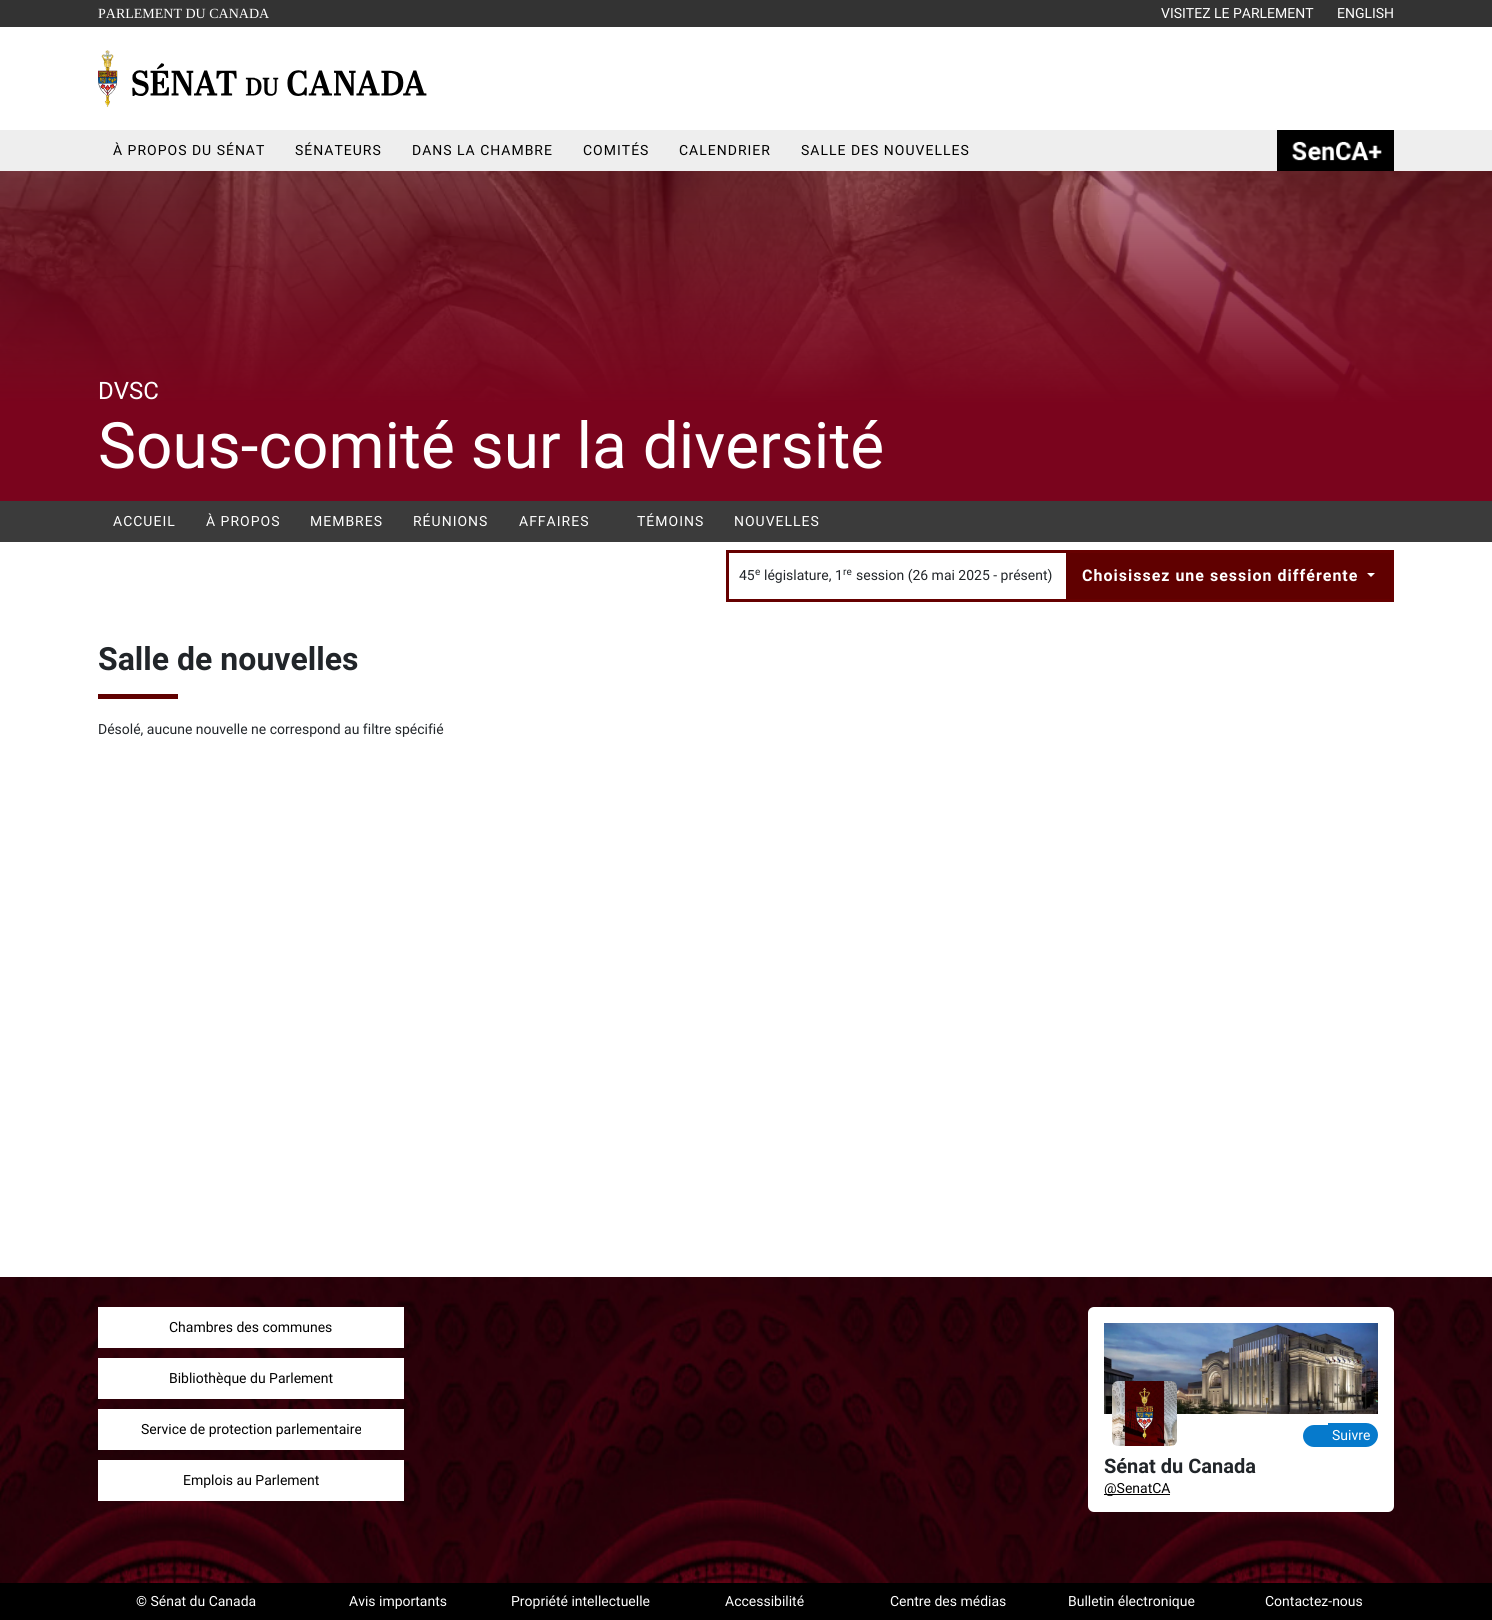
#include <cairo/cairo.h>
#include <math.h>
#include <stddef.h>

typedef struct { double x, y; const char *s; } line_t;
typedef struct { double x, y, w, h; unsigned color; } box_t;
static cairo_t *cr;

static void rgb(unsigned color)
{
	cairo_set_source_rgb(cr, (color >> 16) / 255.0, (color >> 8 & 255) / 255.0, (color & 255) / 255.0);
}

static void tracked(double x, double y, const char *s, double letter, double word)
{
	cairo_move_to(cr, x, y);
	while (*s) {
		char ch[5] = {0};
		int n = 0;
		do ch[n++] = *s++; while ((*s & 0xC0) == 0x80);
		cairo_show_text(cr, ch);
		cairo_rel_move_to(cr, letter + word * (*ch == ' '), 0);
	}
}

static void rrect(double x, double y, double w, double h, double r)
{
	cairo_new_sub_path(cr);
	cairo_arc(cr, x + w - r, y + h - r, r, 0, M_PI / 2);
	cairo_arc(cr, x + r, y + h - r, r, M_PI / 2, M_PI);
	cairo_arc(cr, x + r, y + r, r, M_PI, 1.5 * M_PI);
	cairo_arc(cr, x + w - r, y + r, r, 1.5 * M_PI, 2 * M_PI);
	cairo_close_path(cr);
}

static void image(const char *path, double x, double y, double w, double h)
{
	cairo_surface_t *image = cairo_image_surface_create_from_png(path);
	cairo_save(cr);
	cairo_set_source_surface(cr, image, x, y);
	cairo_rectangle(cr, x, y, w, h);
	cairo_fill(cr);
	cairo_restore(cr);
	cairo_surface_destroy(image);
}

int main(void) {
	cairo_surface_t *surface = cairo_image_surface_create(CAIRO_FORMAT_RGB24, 1492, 1620);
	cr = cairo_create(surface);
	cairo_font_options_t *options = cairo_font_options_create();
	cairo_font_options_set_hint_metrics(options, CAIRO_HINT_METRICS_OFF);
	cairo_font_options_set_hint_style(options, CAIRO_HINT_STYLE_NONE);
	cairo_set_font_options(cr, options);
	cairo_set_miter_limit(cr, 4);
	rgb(0xffffff);
	cairo_paint(cr);
	rgb(0x333333);
	cairo_rectangle(cr, 0, 0, 1492, 27);
	cairo_fill(cr);
	image("img/1.png", 98, 50, 329, 57);
	rgb(0xeeeeee);
	cairo_rectangle(cr, 0, 130, 1492, 41);
	cairo_fill(cr);
	rgb(0x000000);
	cairo_rectangle(cr, 1277, 130, 117, 41);
	cairo_fill(cr);
	image("img/2.png", 1292, 141, 90, 20);
	image("img/3.png", 0, 171, 1492, 330);
	rgb(0x3b3b3b);
	cairo_rectangle(cr, 0, 501, 1492, 41);
	cairo_fill(cr);
	cairo_rectangle(cr, 727.5, 551.5, 665, 49);
	rgb(0x660000);
	cairo_set_line_width(cr, 3);
	cairo_stroke(cr);
	rgb(0x600000);
	cairo_rectangle(cr, 1066, 553, 325, 46);
	cairo_fill(cr);
	rgb(0xffffff);
	cairo_new_path(cr);
	cairo_move_to(cr, 1367, 573);
	cairo_line_to(cr, 1375, 573);
	cairo_line_to(cr, 1371, 577);
	cairo_close_path(cr);
	cairo_fill(cr);
	rgb(0x600000);
	cairo_rectangle(cr, 98, 694, 80, 5);
	cairo_fill(cr);
	image("img/4.png", 0, 1277, 1492, 306);
	{
		static const box_t items[] = {
			{98, 1307, 306, 41, 0xffffff},
			{98, 1358, 306, 41, 0xffffff},
			{98, 1409, 306, 41, 0xffffff},
			{98, 1460, 306, 41, 0xffffff},
		};
		for (size_t i = 0; i < sizeof items / sizeof *items; i++) {
			rgb(items[i].color);
			cairo_rectangle(cr, items[i].x, items[i].y, items[i].w, items[i].h);
			cairo_fill(cr);
		}
	}
	rrect(1088, 1307, 306, 205, 6);
	cairo_fill(cr);
	image("img/5.png", 1104, 1323, 274, 91);
	image("img/6.png", 1112, 1381, 65, 65);
	rgb(0x067acc);
	cairo_new_path(cr);
	cairo_move_to(cr, 1314, 1425);
	cairo_line_to(cr, 1328, 1425);
	cairo_line_to(cr, 1328, 1447);
	cairo_line_to(cr, 1314, 1447);
	cairo_curve_to(cr, 1308, 1447, 1303, 1442, 1303, 1436);
	cairo_curve_to(cr, 1303, 1430, 1308, 1425, 1314, 1425);
	cairo_close_path(cr);
	cairo_fill(cr);
	cairo_new_path(cr);
	cairo_move_to(cr, 1328, 1423);
	cairo_line_to(cr, 1366, 1423);
	cairo_curve_to(cr, 1372.5, 1423, 1378, 1428.5, 1378, 1435);
	cairo_curve_to(cr, 1378, 1441.5, 1372.5, 1447, 1366, 1447);
	cairo_line_to(cr, 1328, 1447);
	cairo_close_path(cr);
	cairo_fill(cr);
	rgb(0x000000);
	cairo_rectangle(cr, 1104, 1494, 66, 1);
	cairo_fill(cr);
	cairo_rectangle(cr, 0, 1583, 1492, 37);
	cairo_fill(cr);
	cairo_select_font_face(cr, "Liberation Serif", CAIRO_FONT_SLANT_NORMAL, CAIRO_FONT_WEIGHT_NORMAL);
	cairo_set_font_size(cr, 14);
	rgb(0xffffff);
	cairo_move_to(cr, 98, 18);
	cairo_show_text(cr, "PARLEMENT DU CANADA");
	cairo_select_font_face(cr, "Roboto", CAIRO_FONT_SLANT_NORMAL, CAIRO_FONT_WEIGHT_NORMAL);
	cairo_move_to(cr, 1161, 18);
	cairo_show_text(cr, "VISITEZ LE PARLEMENT");
	cairo_move_to(cr, 1337, 18);
	cairo_show_text(cr, "ENGLISH");
	rgb(0x000000);
	{
		static const line_t items[] = {
			{113, 155, "À PROPOS DU SÉNAT"},
			{295, 155, "SÉNATEURS"},
			{412, 155, "DANS LA CHAMBRE"},
			{583, 155, "COMITÉS"},
			{679, 155, "CALENDRIER"},
			{801, 155, "SALLE DES NOUVELLES"},
		};
		for (size_t i = 0; i < sizeof items / sizeof *items; i++) {
			tracked(items[i].x, items[i].y, items[i].s, 1, 0);
		}
	}
	cairo_set_font_size(cr, 24);
	rgb(0xffffff);
	cairo_move_to(cr, 98, 399);
	cairo_show_text(cr, "DVSC");
	cairo_set_font_size(cr, 64);
	cairo_move_to(cr, 98, 468);
	cairo_show_text(cr, "Sous-comité sur la diversité");
	cairo_set_font_size(cr, 14);
	{
		static const line_t items[] = {
			{113, 526, "ACCUEIL"},
			{206, 526, "À PROPOS"},
			{310, 526, "MEMBRES"},
			{413, 526, "RÉUNIONS"},
			{519, 526, "AFFAIRES"},
			{637, 526, "TÉMOINS"},
			{734, 526, "NOUVELLES"},
		};
		for (size_t i = 0; i < sizeof items / sizeof *items; i++) {
			tracked(items[i].x, items[i].y, items[i].s, 1, 0);
		}
	}
	rgb(0x212529);
	cairo_move_to(cr, 739, 580);
	cairo_show_text(cr, "45");
	cairo_set_font_size(cr, 10);
	cairo_move_to(cr, 755, 575);
	cairo_show_text(cr, "e");
	cairo_set_font_size(cr, 14);
	cairo_move_to(cr, 764, 580);
	cairo_show_text(cr, "législature, 1");
	cairo_set_font_size(cr, 10);
	cairo_move_to(cr, 843, 575);
	cairo_show_text(cr, "re");
	cairo_set_font_size(cr, 14);
	cairo_move_to(cr, 856, 580);
	cairo_show_text(cr, "session (26 mai 2025 - présent)");
	cairo_select_font_face(cr, "Roboto", CAIRO_FONT_SLANT_NORMAL, CAIRO_FONT_WEIGHT_BOLD);
	cairo_set_font_size(cr, 16);
	rgb(0xffffff);
	tracked(1082, 581, "Choisissez une session différente", 1, 0);
	cairo_set_font_size(cr, 32);
	rgb(0x212529);
	cairo_move_to(cr, 98, 670);
	cairo_show_text(cr, "Salle de nouvelles");
	cairo_select_font_face(cr, "Roboto", CAIRO_FONT_SLANT_NORMAL, CAIRO_FONT_WEIGHT_NORMAL);
	cairo_set_font_size(cr, 14);
	cairo_move_to(cr, 98, 734);
	cairo_show_text(cr, "Désolé, aucune nouvelle ne correspond au filtre spécifié");
	rgb(0x000000);
	{
		static const line_t items[] = {
			{169, 1332, "Chambres des communes"},
			{169, 1383, "Bibliothèque du Parlement"},
			{141, 1434, "Service de protection parlementaire"},
			{183, 1485, "Emplois au Parlement"},
		};
		for (size_t i = 0; i < sizeof items / sizeof *items; i++) {
			cairo_move_to(cr, items[i].x, items[i].y);
			cairo_show_text(cr, items[i].s);
		}
	}
	rgb(0xffffff);
	cairo_move_to(cr, 1332, 1440);
	cairo_show_text(cr, "Suivre");
	cairo_select_font_face(cr, "Roboto", CAIRO_FONT_SLANT_NORMAL, CAIRO_FONT_WEIGHT_BOLD);
	cairo_set_font_size(cr, 20);
	rgb(0x212529);
	cairo_move_to(cr, 1104, 1473);
	cairo_show_text(cr, "Sénat du Canada");
	cairo_select_font_face(cr, "Roboto", CAIRO_FONT_SLANT_NORMAL, CAIRO_FONT_WEIGHT_NORMAL);
	cairo_set_font_size(cr, 14);
	rgb(0x000000);
	cairo_move_to(cr, 1104, 1493);
	cairo_show_text(cr, "@SenatCA");
	rgb(0xffffff);
	{
		static const line_t items[] = {
			{136, 1606, "© Sénat du Canada"},
			{349, 1606, "Avis importants"},
			{511, 1606, "Propriété intellectuelle"},
			{725, 1606, "Accessibilité"},
			{890, 1606, "Centre des médias"},
			{1068, 1606, "Bulletin électronique"},
			{1265, 1606, "Contactez-nous"},
		};
		for (size_t i = 0; i < sizeof items / sizeof *items; i++) {
			cairo_move_to(cr, items[i].x, items[i].y);
			cairo_show_text(cr, items[i].s);
		}
	}
	cairo_surface_write_to_png(surface, "page.png");
	cairo_font_options_destroy(options);
	cairo_destroy(cr);
	cairo_surface_destroy(surface);
	return 0;
}
